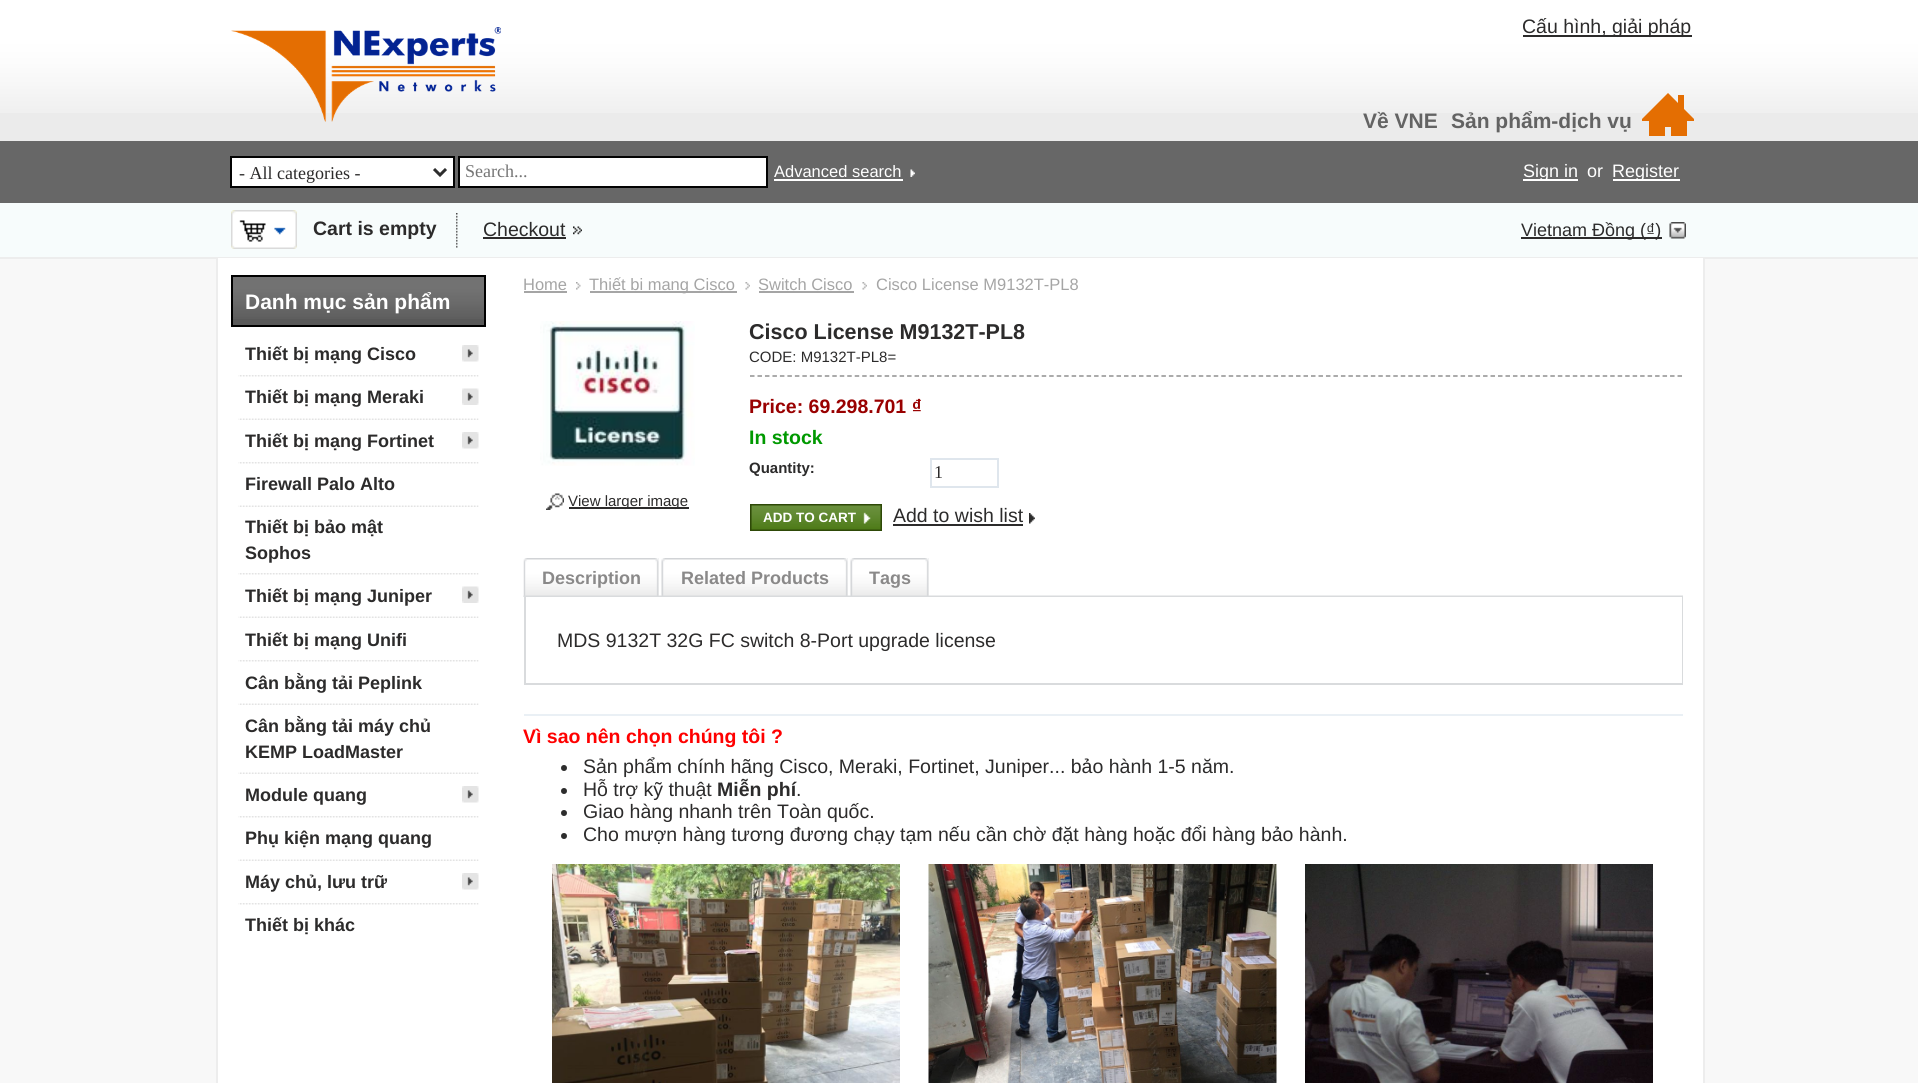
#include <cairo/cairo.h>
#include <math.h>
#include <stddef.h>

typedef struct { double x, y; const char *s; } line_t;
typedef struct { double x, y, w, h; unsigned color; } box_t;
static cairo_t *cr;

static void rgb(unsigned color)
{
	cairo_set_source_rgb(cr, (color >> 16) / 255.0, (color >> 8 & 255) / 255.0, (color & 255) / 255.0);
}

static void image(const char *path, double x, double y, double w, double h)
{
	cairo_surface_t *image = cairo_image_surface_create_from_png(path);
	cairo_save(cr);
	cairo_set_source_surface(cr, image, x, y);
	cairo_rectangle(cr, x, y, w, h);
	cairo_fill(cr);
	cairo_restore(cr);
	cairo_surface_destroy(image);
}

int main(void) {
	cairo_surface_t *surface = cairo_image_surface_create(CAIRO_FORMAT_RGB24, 1918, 1083);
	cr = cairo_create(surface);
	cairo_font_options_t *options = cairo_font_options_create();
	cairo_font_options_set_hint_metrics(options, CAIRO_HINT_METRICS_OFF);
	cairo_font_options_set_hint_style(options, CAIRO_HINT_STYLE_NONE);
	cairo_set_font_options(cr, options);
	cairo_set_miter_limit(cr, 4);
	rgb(0xf8f8f8);
	cairo_paint(cr);
	rgb(0xebebeb);
	cairo_rectangle(cr, 0, 113, 1918, 28);
	cairo_fill(cr);
	image("img/1.png", 0, 0, 1918, 113);
	image("img/2.png", 231, 27, 270, 95);
	rgb(0x2c2b2b);
	cairo_rectangle(cr, 1523, 35, 169, 2);
	cairo_fill(cr);
	rgb(0xe46e02);
	cairo_new_path(cr);
	cairo_move_to(cr, 1694, 119);
	cairo_line_to(cr, 1684, 109);
	cairo_line_to(cr, 1684, 95);
	cairo_line_to(cr, 1678, 95);
	cairo_line_to(cr, 1678, 103);
	cairo_line_to(cr, 1668, 93);
	cairo_line_to(cr, 1642, 119);
	cairo_line_to(cr, 1642, 121);
	cairo_line_to(cr, 1649, 121);
	cairo_line_to(cr, 1649, 136);
	cairo_line_to(cr, 1665, 136);
	cairo_line_to(cr, 1665, 127);
	cairo_line_to(cr, 1671, 127);
	cairo_line_to(cr, 1671, 136);
	cairo_line_to(cr, 1687, 136);
	cairo_line_to(cr, 1687, 121);
	cairo_line_to(cr, 1694, 121);
	cairo_close_path(cr);
	cairo_fill(cr);
	rgb(0x676767);
	cairo_rectangle(cr, 0, 141, 1918, 62);
	cairo_fill(cr);
	rgb(0xffffff);
	cairo_rectangle(cr, 231, 157, 223, 30);
	cairo_fill_preserve(cr);
	rgb(0x030303);
	cairo_stroke(cr);
	cairo_new_path(cr);
	cairo_move_to(cr, 434, 169);
	cairo_line_to(cr, 440, 175);
	cairo_line_to(cr, 446, 169);
	rgb(0x2d2d2d);
	cairo_set_line_width(cr, 3);
	cairo_stroke(cr);
	rgb(0xffffff);
	cairo_rectangle(cr, 459, 157, 308, 30);
	cairo_fill_preserve(cr);
	rgb(0x030303);
	cairo_set_line_width(cr, 2);
	cairo_stroke(cr);
	rgb(0xffffff);
	cairo_rectangle(cr, 774, 179, 129, 2);
	cairo_fill(cr);
	image("img/3.png", 910, 169, 5, 8);
	{
		static const box_t items[] = {
			{1523, 179, 55, 2, 0xffffff},
			{1613, 179, 67, 2, 0xffffff},
			{0, 203, 1918, 54, 0xf7fcfc},
			{0, 257, 1918, 2, 0xededed},
		};
		for (size_t i = 0; i < sizeof items / sizeof *items; i++) {
			rgb(items[i].color);
			cairo_rectangle(cr, items[i].x, items[i].y, items[i].w, items[i].h);
			cairo_fill(cr);
		}
	}
	image("img/4.png", 456, 213, 2, 35);
	image("img/5.png", 231, 210, 66, 39);
	rgb(0x2c2b2b);
	cairo_rectangle(cr, 483, 237, 83, 2);
	cairo_fill(cr);
	image("img/6.png", 573, 226, 9, 9);
	cairo_rectangle(cr, 1521, 237, 141, 2);
	cairo_fill(cr);
	image("img/7.png", 1669, 222, 17, 17);
	{
		static const box_t items[] = {
			{218, 258, 1485, 825, 0xffffff},
			{1703, 258, 2, 825, 0xededed},
			{216, 258, 2, 825, 0xededed},
			{233, 319, 251, 6, 0x595959},
		};
		for (size_t i = 0; i < sizeof items / sizeof *items; i++) {
			rgb(items[i].color);
			cairo_rectangle(cr, items[i].x, items[i].y, items[i].w, items[i].h);
			cairo_fill(cr);
		}
	}
	image("img/8.png", 233, 277, 251, 42);
	cairo_rectangle(cr, 232, 276, 253, 50);
	rgb(0x000000);
	cairo_stroke(cr);
	image("img/9.png", 462, 345, 17, 17);
	image("img/10.png", 238, 375, 241, 2);
	image("img/11.png", 462, 388, 17, 17);
	image("img/12.png", 238, 418, 241, 2);
	image("img/9.png", 462, 432, 17, 17);
	image("img/10.png", 238, 462, 241, 2);
	image("img/12.png", 238, 505, 241, 2);
	image("img/10.png", 238, 573, 241, 2);
	image("img/11.png", 462, 586, 17, 17);
	image("img/12.png", 238, 616, 241, 2);
	image("img/10.png", 238, 660, 241, 2);
	image("img/12.png", 238, 703, 241, 2);
	image("img/12.png", 238, 772, 241, 2);
	image("img/9.png", 462, 786, 17, 17);
	image("img/10.png", 238, 816, 241, 2);
	image("img/12.png", 238, 859, 241, 2);
	image("img/9.png", 462, 873, 17, 17);
	image("img/10.png", 238, 903, 241, 2);
	rgb(0xa5a5a5);
	cairo_rectangle(cr, 524, 291, 43, 2);
	cairo_fill(cr);
	image("img/13.png", 576, 282, 5, 8);
	cairo_rectangle(cr, 590, 291, 147, 2);
	cairo_fill(cr);
	image("img/14.png", 745, 282, 5, 8);
	cairo_rectangle(cr, 759, 291, 95, 2);
	cairo_fill(cr);
	image("img/15.png", 862, 282, 5, 8);
	image("img/16.png", 540, 321, 155, 145);
	image("img/17.png", 546, 493, 18, 17);
	rgb(0x2c2b2b);
	cairo_rectangle(cr, 569, 507, 120, 2);
	cairo_fill(cr);
	cairo_new_path(cr);
	cairo_move_to(cr, 750, 376);
	cairo_line_to(cr, 1683, 376);
	rgb(0x909090);
	cairo_set_line_width(cr, 1.5);
	cairo_set_dash(cr, (double[]){4.5, 2.98}, 2, 0);
	cairo_stroke(cr);
	cairo_rectangle(cr, 931, 459, 67, 28);
	rgb(0xdfe6ed);
	cairo_set_line_width(cr, 2);
	cairo_set_dash(cr, NULL, 0, 0);
	cairo_stroke(cr);
	image("img/18.png", 750, 504, 132, 27);
	image("img/19.png", 750, 505, 2, 25);
	rgb(0x2c2b2b);
	cairo_rectangle(cr, 893, 524, 130, 2);
	cairo_fill(cr);
	image("img/20.png", 1029, 513, 6, 11);
	image("img/21.png", 523, 595, 1160, 2);
	image("img/22.png", 523, 558, 136, 39);
	image("img/23.png", 655, 558, 4, 39);
	image("img/24.png", 661, 558, 187, 39);
	image("img/25.png", 844, 558, 4, 39);
	image("img/26.png", 850, 558, 79, 39);
	image("img/23.png", 925, 558, 4, 39);
	{
		static const box_t items[] = {
			{1682, 597, 1, 87, 0xd9dbdd},
			{524, 683, 1159, 2, 0xd9dbdd},
			{524, 597, 2, 87, 0xd9dbdd},
			{524, 714, 1159, 2, 0xeaf0f5},
		};
		for (size_t i = 0; i < sizeof items / sizeof *items; i++) {
			rgb(items[i].color);
			cairo_rectangle(cr, items[i].x, items[i].y, items[i].w, items[i].h);
			cairo_fill(cr);
		}
	}
	rgb(0x2d2d2d);
	cairo_arc(cr, 564, 768, 3, 0, 2 * M_PI);
	cairo_fill(cr);
	cairo_arc(cr, 564, 791, 3, 0, 2 * M_PI);
	cairo_fill(cr);
	cairo_arc(cr, 564, 813, 3, 0, 2 * M_PI);
	cairo_fill(cr);
	cairo_arc(cr, 564, 836, 3, 0, 2 * M_PI);
	cairo_fill(cr);
	image("img/27.png", 552, 864, 348, 219);
	image("img/28.png", 928, 864, 349, 219);
	image("img/29.png", 1305, 864, 348, 219);
	cairo_select_font_face(cr, "Liberation Sans", CAIRO_FONT_SLANT_NORMAL, CAIRO_FONT_WEIGHT_NORMAL);
	cairo_set_font_size(cr, 19.5);
	rgb(0x2c2b2b);
	cairo_move_to(cr, 1522, 33);
	cairo_show_text(cr, "Cấu hình, giải pháp");
	cairo_select_font_face(cr, "Liberation Sans", CAIRO_FONT_SLANT_NORMAL, CAIRO_FONT_WEIGHT_BOLD);
	cairo_set_font_size(cr, 21);
	rgb(0x636363);
	cairo_move_to(cr, 1363, 128);
	cairo_show_text(cr, "Về VNE");
	cairo_move_to(cr, 1451, 128);
	cairo_show_text(cr, "Sản phẩm-dịch vụ");
	cairo_select_font_face(cr, "Liberation Serif", CAIRO_FONT_SLANT_NORMAL, CAIRO_FONT_WEIGHT_NORMAL);
	cairo_set_font_size(cr, 18);
	rgb(0x2c2b2b);
	cairo_move_to(cr, 239, 179);
	cairo_show_text(cr, "- All categories -");
	rgb(0x757575);
	cairo_move_to(cr, 465, 177);
	cairo_show_text(cr, "Search...");
	cairo_select_font_face(cr, "Liberation Sans", CAIRO_FONT_SLANT_NORMAL, CAIRO_FONT_WEIGHT_NORMAL);
	cairo_set_font_size(cr, 16.5);
	rgb(0xffffff);
	cairo_move_to(cr, 774, 177);
	cairo_show_text(cr, "Advanced search");
	cairo_set_font_size(cr, 18);
	{
		static const line_t items[] = {
			{1523, 177, "Sign in"},
			{1587, 177, "or"},
			{1612, 177, "Register"},
		};
		for (size_t i = 0; i < sizeof items / sizeof *items; i++) {
			cairo_move_to(cr, items[i].x, items[i].y);
			cairo_show_text(cr, items[i].s);
		}
	}
	cairo_select_font_face(cr, "Liberation Sans", CAIRO_FONT_SLANT_NORMAL, CAIRO_FONT_WEIGHT_BOLD);
	cairo_set_font_size(cr, 19.5);
	rgb(0x2c2b2b);
	cairo_move_to(cr, 313, 235);
	cairo_show_text(cr, "Cart is empty");
	cairo_select_font_face(cr, "Liberation Sans", CAIRO_FONT_SLANT_NORMAL, CAIRO_FONT_WEIGHT_NORMAL);
	cairo_move_to(cr, 483, 236);
	cairo_show_text(cr, "Checkout");
	cairo_set_font_size(cr, 18);
	cairo_move_to(cr, 1521, 236);
	cairo_show_text(cr, "Vietnam Đồng (₫)");
	cairo_select_font_face(cr, "Liberation Sans", CAIRO_FONT_SLANT_NORMAL, CAIRO_FONT_WEIGHT_BOLD);
	cairo_set_font_size(cr, 21);
	rgb(0xffffff);
	cairo_move_to(cr, 245, 309);
	cairo_show_text(cr, "Danh mục sản phẩm");
	cairo_set_font_size(cr, 18);
	rgb(0x2c2b2b);
	{
		static const line_t items[] = {
			{245, 360, "Thiết bị mạng Cisco"},
			{245, 403, "Thiết bị mạng Meraki"},
			{245, 447, "Thiết bị mạng Fortinet"},
			{245, 490, "Firewall Palo Alto"},
			{245, 533, "Thiết bị bảo mật"},
			{245, 559, "Sophos"},
			{245, 602, "Thiết bị mạng Juniper"},
			{245, 646, "Thiết bị mạng Unifi"},
			{245, 689, "Cân bằng tải Peplink"},
			{245, 732, "Cân bằng tải máy chủ"},
			{245, 758, "KEMP LoadMaster"},
			{245, 801, "Module quang"},
			{245, 844, "Phụ kiện mạng quang"},
			{245, 888, "Máy chủ, lưu trữ"},
			{245, 931, "Thiết bị khác"},
		};
		for (size_t i = 0; i < sizeof items / sizeof *items; i++) {
			cairo_move_to(cr, items[i].x, items[i].y);
			cairo_show_text(cr, items[i].s);
		}
	}
	cairo_select_font_face(cr, "Liberation Sans", CAIRO_FONT_SLANT_NORMAL, CAIRO_FONT_WEIGHT_NORMAL);
	cairo_set_font_size(cr, 16.5);
	rgb(0xa5a5a5);
	{
		static const line_t items[] = {
			{523, 290, "Home"},
			{589, 290, "Thiết bị mạng Cisco"},
			{758, 290, "Switch Cisco"},
			{876, 290, "Cisco License M9132T-PL8"},
		};
		for (size_t i = 0; i < sizeof items / sizeof *items; i++) {
			cairo_move_to(cr, items[i].x, items[i].y);
			cairo_show_text(cr, items[i].s);
		}
	}
	cairo_set_font_size(cr, 15);
	rgb(0x2c2b2b);
	cairo_move_to(cr, 568, 506);
	cairo_show_text(cr, "View larger image");
	cairo_select_font_face(cr, "Liberation Sans", CAIRO_FONT_SLANT_NORMAL, CAIRO_FONT_WEIGHT_BOLD);
	cairo_set_font_size(cr, 21.5);
	cairo_move_to(cr, 749, 339);
	cairo_show_text(cr, "Cisco License M9132T-PL8");
	cairo_select_font_face(cr, "Liberation Sans", CAIRO_FONT_SLANT_NORMAL, CAIRO_FONT_WEIGHT_NORMAL);
	cairo_set_font_size(cr, 15);
	cairo_move_to(cr, 749, 362);
	cairo_show_text(cr, "CODE: M9132T-PL8=");
	cairo_select_font_face(cr, "Liberation Sans", CAIRO_FONT_SLANT_NORMAL, CAIRO_FONT_WEIGHT_BOLD);
	cairo_set_font_size(cr, 19.5);
	rgb(0x990000);
	cairo_move_to(cr, 749, 413);
	cairo_show_text(cr, "Price: 69.298.701 ₫");
	rgb(0x009900);
	cairo_move_to(cr, 749, 444);
	cairo_show_text(cr, "In stock");
	cairo_set_font_size(cr, 15);
	rgb(0x2c2b2b);
	cairo_move_to(cr, 749, 473);
	cairo_show_text(cr, "Quantity:");
	cairo_select_font_face(cr, "Liberation Serif", CAIRO_FONT_SLANT_NORMAL, CAIRO_FONT_WEIGHT_NORMAL);
	cairo_set_font_size(cr, 18);
	cairo_move_to(cr, 934, 478);
	cairo_show_text(cr, "1");
	cairo_select_font_face(cr, "Liberation Sans", CAIRO_FONT_SLANT_NORMAL, CAIRO_FONT_WEIGHT_BOLD);
	cairo_set_font_size(cr, 13.5);
	rgb(0xffffff);
	cairo_move_to(cr, 763, 522);
	cairo_show_text(cr, "ADD TO CART");
	cairo_select_font_face(cr, "Liberation Sans", CAIRO_FONT_SLANT_NORMAL, CAIRO_FONT_WEIGHT_NORMAL);
	cairo_set_font_size(cr, 19.5);
	rgb(0x2c2b2b);
	cairo_move_to(cr, 893, 522);
	cairo_show_text(cr, "Add to wish list");
	cairo_select_font_face(cr, "Liberation Sans", CAIRO_FONT_SLANT_NORMAL, CAIRO_FONT_WEIGHT_BOLD);
	cairo_set_font_size(cr, 18);
	rgb(0x8a8989);
	{
		static const line_t items[] = {
			{542, 584, "Description"},
			{681, 584, "Related Products"},
			{869, 584, "Tags"},
		};
		for (size_t i = 0; i < sizeof items / sizeof *items; i++) {
			cairo_move_to(cr, items[i].x, items[i].y);
			cairo_show_text(cr, items[i].s);
		}
	}
	cairo_select_font_face(cr, "Liberation Sans", CAIRO_FONT_SLANT_NORMAL, CAIRO_FONT_WEIGHT_NORMAL);
	cairo_set_font_size(cr, 19.5);
	rgb(0x2c2b2b);
	cairo_move_to(cr, 557, 647);
	cairo_show_text(cr, "MDS 9132T 32G FC switch 8-Port upgrade license");
	cairo_select_font_face(cr, "Liberation Sans", CAIRO_FONT_SLANT_NORMAL, CAIRO_FONT_WEIGHT_BOLD);
	rgb(0xff0000);
	cairo_move_to(cr, 523, 743);
	cairo_show_text(cr, "Vì sao nên chọn chúng tôi ?");
	cairo_select_font_face(cr, "Liberation Sans", CAIRO_FONT_SLANT_NORMAL, CAIRO_FONT_WEIGHT_NORMAL);
	rgb(0x2c2b2b);
	cairo_move_to(cr, 583, 773);
	cairo_show_text(cr, "Sản phẩm chính hãng Cisco, Meraki, Fortinet, Juniper... bảo hành 1-5 năm.");
	cairo_move_to(cr, 583, 796);
	cairo_show_text(cr, "Hỗ trợ kỹ thuật");
	cairo_select_font_face(cr, "Liberation Sans", CAIRO_FONT_SLANT_NORMAL, CAIRO_FONT_WEIGHT_BOLD);
	cairo_move_to(cr, 717, 796);
	cairo_show_text(cr, "Miễn phí");
	cairo_select_font_face(cr, "Liberation Sans", CAIRO_FONT_SLANT_NORMAL, CAIRO_FONT_WEIGHT_NORMAL);
	{
		static const line_t items[] = {
			{796, 796, "."},
			{583, 818, "Giao hàng nhanh trên Toàn quốc."},
			{583, 841, "Cho mượn hàng tương đương chạy tạm nếu cần chờ đặt hàng hoặc đổi hàng bảo hành."},
		};
		for (size_t i = 0; i < sizeof items / sizeof *items; i++) {
			cairo_move_to(cr, items[i].x, items[i].y);
			cairo_show_text(cr, items[i].s);
		}
	}
	cairo_surface_write_to_png(surface, "page.png");
	cairo_font_options_destroy(options);
	cairo_destroy(cr);
	cairo_surface_destroy(surface);
	return 0;
}
